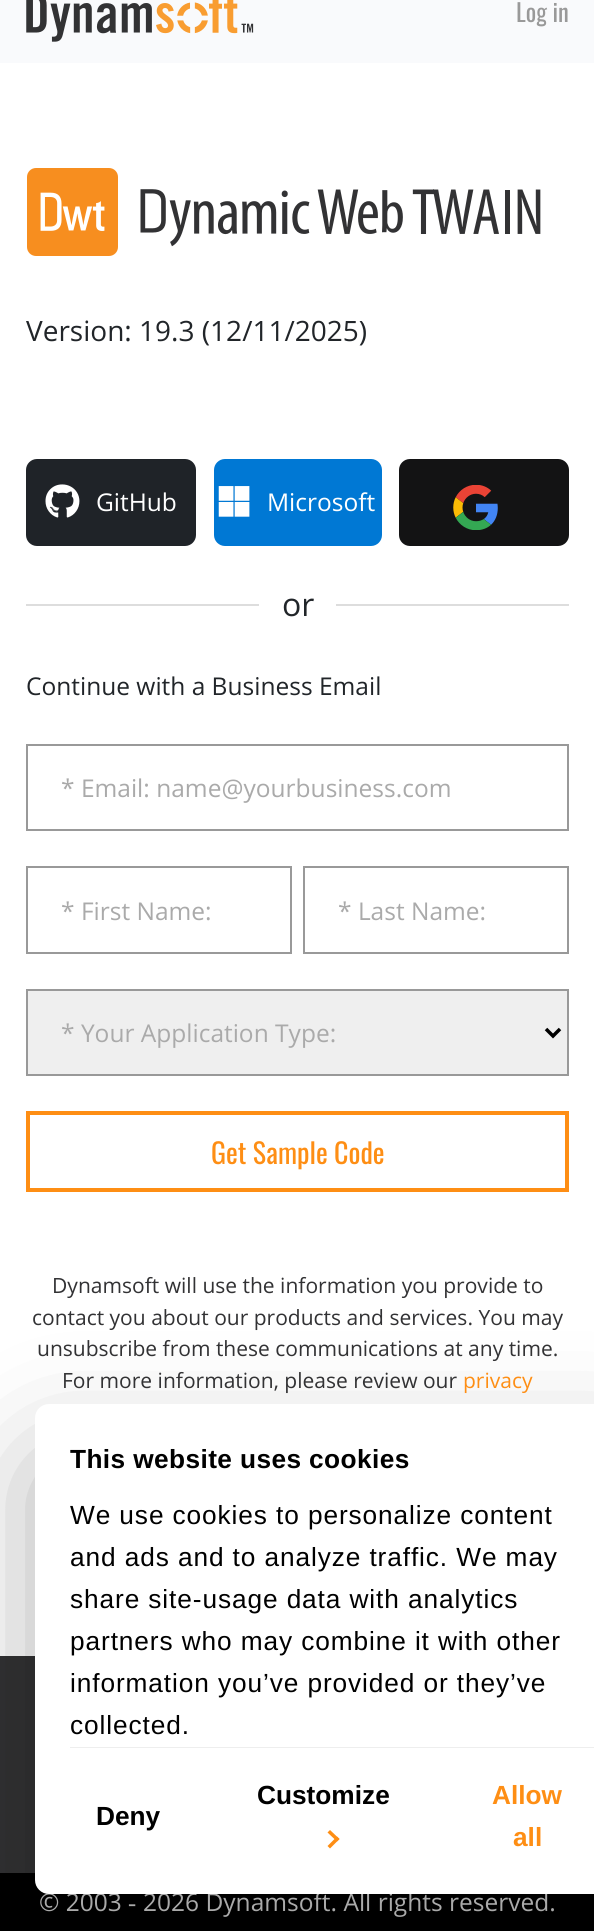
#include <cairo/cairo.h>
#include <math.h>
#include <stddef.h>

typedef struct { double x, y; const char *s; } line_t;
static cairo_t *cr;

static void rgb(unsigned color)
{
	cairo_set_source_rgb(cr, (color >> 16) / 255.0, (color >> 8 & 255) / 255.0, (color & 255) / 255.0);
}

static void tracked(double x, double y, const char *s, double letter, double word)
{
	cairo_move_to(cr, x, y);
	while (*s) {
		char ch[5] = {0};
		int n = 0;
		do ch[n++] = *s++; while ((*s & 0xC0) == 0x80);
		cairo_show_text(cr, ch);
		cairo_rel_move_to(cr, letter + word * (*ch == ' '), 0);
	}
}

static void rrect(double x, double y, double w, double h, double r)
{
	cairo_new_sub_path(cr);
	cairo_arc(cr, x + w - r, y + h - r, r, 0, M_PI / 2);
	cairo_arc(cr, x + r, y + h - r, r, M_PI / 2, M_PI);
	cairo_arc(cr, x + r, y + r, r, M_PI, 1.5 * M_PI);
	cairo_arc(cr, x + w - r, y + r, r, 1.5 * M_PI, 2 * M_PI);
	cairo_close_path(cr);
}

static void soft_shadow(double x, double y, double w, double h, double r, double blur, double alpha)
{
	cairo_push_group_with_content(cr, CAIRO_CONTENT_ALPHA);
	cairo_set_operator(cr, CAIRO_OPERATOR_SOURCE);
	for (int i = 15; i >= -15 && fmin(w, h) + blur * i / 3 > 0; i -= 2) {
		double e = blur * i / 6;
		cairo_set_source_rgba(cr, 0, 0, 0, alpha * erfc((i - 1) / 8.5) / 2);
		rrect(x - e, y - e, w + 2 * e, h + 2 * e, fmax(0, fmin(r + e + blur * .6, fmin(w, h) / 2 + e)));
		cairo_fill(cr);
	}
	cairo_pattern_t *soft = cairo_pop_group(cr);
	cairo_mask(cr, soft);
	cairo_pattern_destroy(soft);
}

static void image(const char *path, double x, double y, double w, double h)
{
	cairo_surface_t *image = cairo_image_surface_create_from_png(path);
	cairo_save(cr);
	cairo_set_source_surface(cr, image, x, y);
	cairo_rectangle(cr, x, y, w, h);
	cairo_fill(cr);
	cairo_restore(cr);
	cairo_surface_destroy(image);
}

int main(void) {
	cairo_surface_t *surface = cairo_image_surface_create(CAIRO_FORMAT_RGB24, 594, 1931);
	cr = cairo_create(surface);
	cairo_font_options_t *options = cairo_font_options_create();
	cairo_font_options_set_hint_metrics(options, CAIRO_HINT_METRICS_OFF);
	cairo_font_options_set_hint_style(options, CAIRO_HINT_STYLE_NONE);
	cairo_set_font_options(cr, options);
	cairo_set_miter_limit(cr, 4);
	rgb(0xffffff);
	cairo_paint(cr);
	rgb(0xf9fafc);
	cairo_rectangle(cr, 0, 0, 594, 63);
	cairo_fill(cr);
	image("img/1.png", 26, 0, 228, 42);
	image("img/2.png", 27, 168, 514, 88);
	rgb(0x1f2328);
	rrect(26, 459, 170, 87, 11);
	cairo_fill(cr);
	image("img/3.png", 45, 484, 35, 34);
	rgb(0x0078d4);
	rrect(214, 459, 168, 87, 11);
	cairo_fill(cr);
	image("img/4.png", 218, 486, 32, 31);
	rgb(0x131314);
	rrect(399, 459, 170, 87, 11);
	cairo_fill(cr);
	image("img/5.png", 453, 485, 45, 45);
	rgb(0xdddddd);
	cairo_rectangle(cr, 26, 604, 233, 2);
	cairo_fill(cr);
	cairo_rectangle(cr, 336, 604, 233, 2);
	cairo_fill(cr);
	cairo_rectangle(cr, 27, 745, 541, 85);
	rgb(0x999999);
	cairo_stroke(cr);
	cairo_rectangle(cr, 27, 867, 264, 86);
	cairo_stroke(cr);
	cairo_rectangle(cr, 304, 867, 264, 86);
	cairo_stroke(cr);
	rgb(0xefefef);
	cairo_rectangle(cr, 27, 990, 541, 85);
	cairo_fill_preserve(cr);
	rgb(0x999999);
	cairo_stroke(cr);
	cairo_new_path(cr);
	cairo_move_to(cr, 546, 1029);
	cairo_line_to(cr, 553, 1036);
	cairo_line_to(cr, 560, 1029);
	rgb(0x000000);
	cairo_set_line_width(cr, 3.5);
	cairo_stroke(cr);
	cairo_rectangle(cr, 28, 1113, 539, 77);
	rgb(0xfe8e14);
	cairo_set_line_width(cr, 4);
	cairo_stroke(cr);
	rgb(0x323234);
	cairo_rectangle(cr, 0, 1656, 35, 217);
	cairo_fill(cr);
	rgb(0x000000);
	cairo_rectangle(cr, 0, 1873, 594, 58);
	cairo_fill(cr);
	rgb(0x000000);
	soft_shadow(35, 1460, 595, 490, 14, 59.5, 0.3);
	cairo_select_font_face(cr, "Oswald", CAIRO_FONT_SLANT_NORMAL, CAIRO_FONT_WEIGHT_NORMAL);
	cairo_set_font_size(cr, 24.5);
	rgb(0x999999);
	cairo_move_to(cr, 516, 22);
	cairo_show_text(cr, "Log in");
	cairo_select_font_face(cr, "Open Sans", CAIRO_FONT_SLANT_NORMAL, CAIRO_FONT_WEIGHT_NORMAL);
	cairo_set_font_size(cr, 28);
	rgb(0x212529);
	cairo_move_to(cr, 26, 341);
	cairo_show_text(cr, "Version: 19.3 (12/11/2025)");
	cairo_set_font_size(cr, 24.5);
	rgb(0xffffff);
	cairo_move_to(cr, 96, 511);
	cairo_show_text(cr, "GitHub");
	cairo_move_to(cr, 267, 511);
	cairo_show_text(cr, "Microsoft");
	cairo_set_font_size(cr, 32);
	rgb(0x212529);
	cairo_move_to(cr, 282, 616);
	cairo_show_text(cr, "or");
	cairo_set_font_size(cr, 24.5);
	cairo_move_to(cr, 26, 695);
	cairo_show_text(cr, "Continue with a Business Email");
	rgb(0xaaaaaa);
	{
		static const line_t items[] = {
			{61, 797, "* Email: name@yourbusiness.com"},
			{61, 920, "* First Name:"},
			{338, 920, "* Last Name:"},
			{61, 1042, "* Your Application Type:"},
		};
		for (size_t i = 0; i < sizeof items / sizeof *items; i++) {
			cairo_move_to(cr, items[i].x, items[i].y);
			cairo_show_text(cr, items[i].s);
		}
	}
	cairo_select_font_face(cr, "Oswald", CAIRO_FONT_SLANT_NORMAL, CAIRO_FONT_WEIGHT_NORMAL);
	cairo_set_font_size(cr, 28);
	rgb(0xfe8e14);
	cairo_move_to(cr, 211, 1164);
	cairo_show_text(cr, "Get Sample Code");
	cairo_select_font_face(cr, "Open Sans", CAIRO_FONT_SLANT_NORMAL, CAIRO_FONT_WEIGHT_NORMAL);
	cairo_set_font_size(cr, 21);
	rgb(0x323234);
	{
		static const line_t items[] = {
			{52, 1293, "Dynamsoft will use the information you provide to"},
			{32, 1325, "contact you about our products and services. You may"},
			{37, 1356, "unsubscribe from these communications at any time."},
			{62, 1388, "For more information, please review our"},
		};
		for (size_t i = 0; i < sizeof items / sizeof *items; i++) {
			cairo_move_to(cr, items[i].x, items[i].y);
			cairo_show_text(cr, items[i].s);
		}
	}
	rgb(0xfe8e14);
	cairo_move_to(cr, 463, 1388);
	cairo_show_text(cr, "privacy");
	cairo_set_font_size(cr, 24.5);
	rgb(0xaaaaaa);
	cairo_move_to(cr, 39, 1911);
	cairo_show_text(cr, "© 2003");
	cairo_select_font_face(cr, "Liberation Serif", CAIRO_FONT_SLANT_NORMAL, CAIRO_FONT_WEIGHT_NORMAL);
	cairo_move_to(cr, 128, 1911);
	cairo_show_text(cr, "‐");
	cairo_select_font_face(cr, "Open Sans", CAIRO_FONT_SLANT_NORMAL, CAIRO_FONT_WEIGHT_NORMAL);
	cairo_move_to(cr, 143, 1911);
	cairo_show_text(cr, "2026 Dynamsoft. All rights reserved.");
	rgb(0xffffff);
	rrect(35, 1404, 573, 490, 14);
	cairo_fill(cr);
	rgb(0xeeeeee);
	cairo_rectangle(cr, 70, 1747, 524, 1);
	cairo_fill(cr);
	cairo_select_font_face(cr, "Liberation Sans", CAIRO_FONT_SLANT_NORMAL, CAIRO_FONT_WEIGHT_BOLD);
	cairo_set_font_size(cr, 26.25);
	rgb(0x000000);
	tracked(70, 1468, "This website uses cookies", 0.4, 0);
	cairo_select_font_face(cr, "Liberation Sans", CAIRO_FONT_SLANT_NORMAL, CAIRO_FONT_WEIGHT_NORMAL);
	{
		static const line_t items[] = {
			{70, 1524, "We use cookies to personalize content"},
			{70, 1566, "and ads and to analyze traffic. We may"},
			{70, 1608, "share site-usage data with analytics"},
			{70, 1650, "partners who may combine it with other"},
			{70, 1692, "information you’ve provided or they’ve"},
			{70, 1734, "collected."},
		};
		for (size_t i = 0; i < sizeof items / sizeof *items; i++) {
			tracked(items[i].x, items[i].y, items[i].s, 0.9, 0);
		}
	}
	cairo_select_font_face(cr, "Liberation Sans", CAIRO_FONT_SLANT_NORMAL, CAIRO_FONT_WEIGHT_BOLD);
	cairo_move_to(cr, 96, 1825);
	cairo_show_text(cr, "Deny");
	cairo_move_to(cr, 257, 1804);
	cairo_show_text(cr, "Customize");
	rgb(0xfe8e14);
	cairo_new_path(cr);
	cairo_move_to(cr, 330, 1830);
	cairo_line_to(cr, 339.5, 1839);
	cairo_line_to(cr, 337, 1841.5);
	cairo_line_to(cr, 327.5, 1832.5);
	cairo_close_path(cr);
	cairo_fill(cr);
	cairo_new_path(cr);
	cairo_move_to(cr, 337, 1836.5);
	cairo_line_to(cr, 339.5, 1839);
	cairo_line_to(cr, 330, 1848.5);
	cairo_line_to(cr, 327.5, 1846);
	cairo_close_path(cr);
	cairo_fill(cr);
	cairo_move_to(cr, 492, 1804);
	cairo_show_text(cr, "Allow");
	cairo_move_to(cr, 513, 1846);
	cairo_show_text(cr, "all");
	cairo_surface_write_to_png(surface, "page.png");
	cairo_font_options_destroy(options);
	cairo_destroy(cr);
	cairo_surface_destroy(surface);
	return 0;
}
